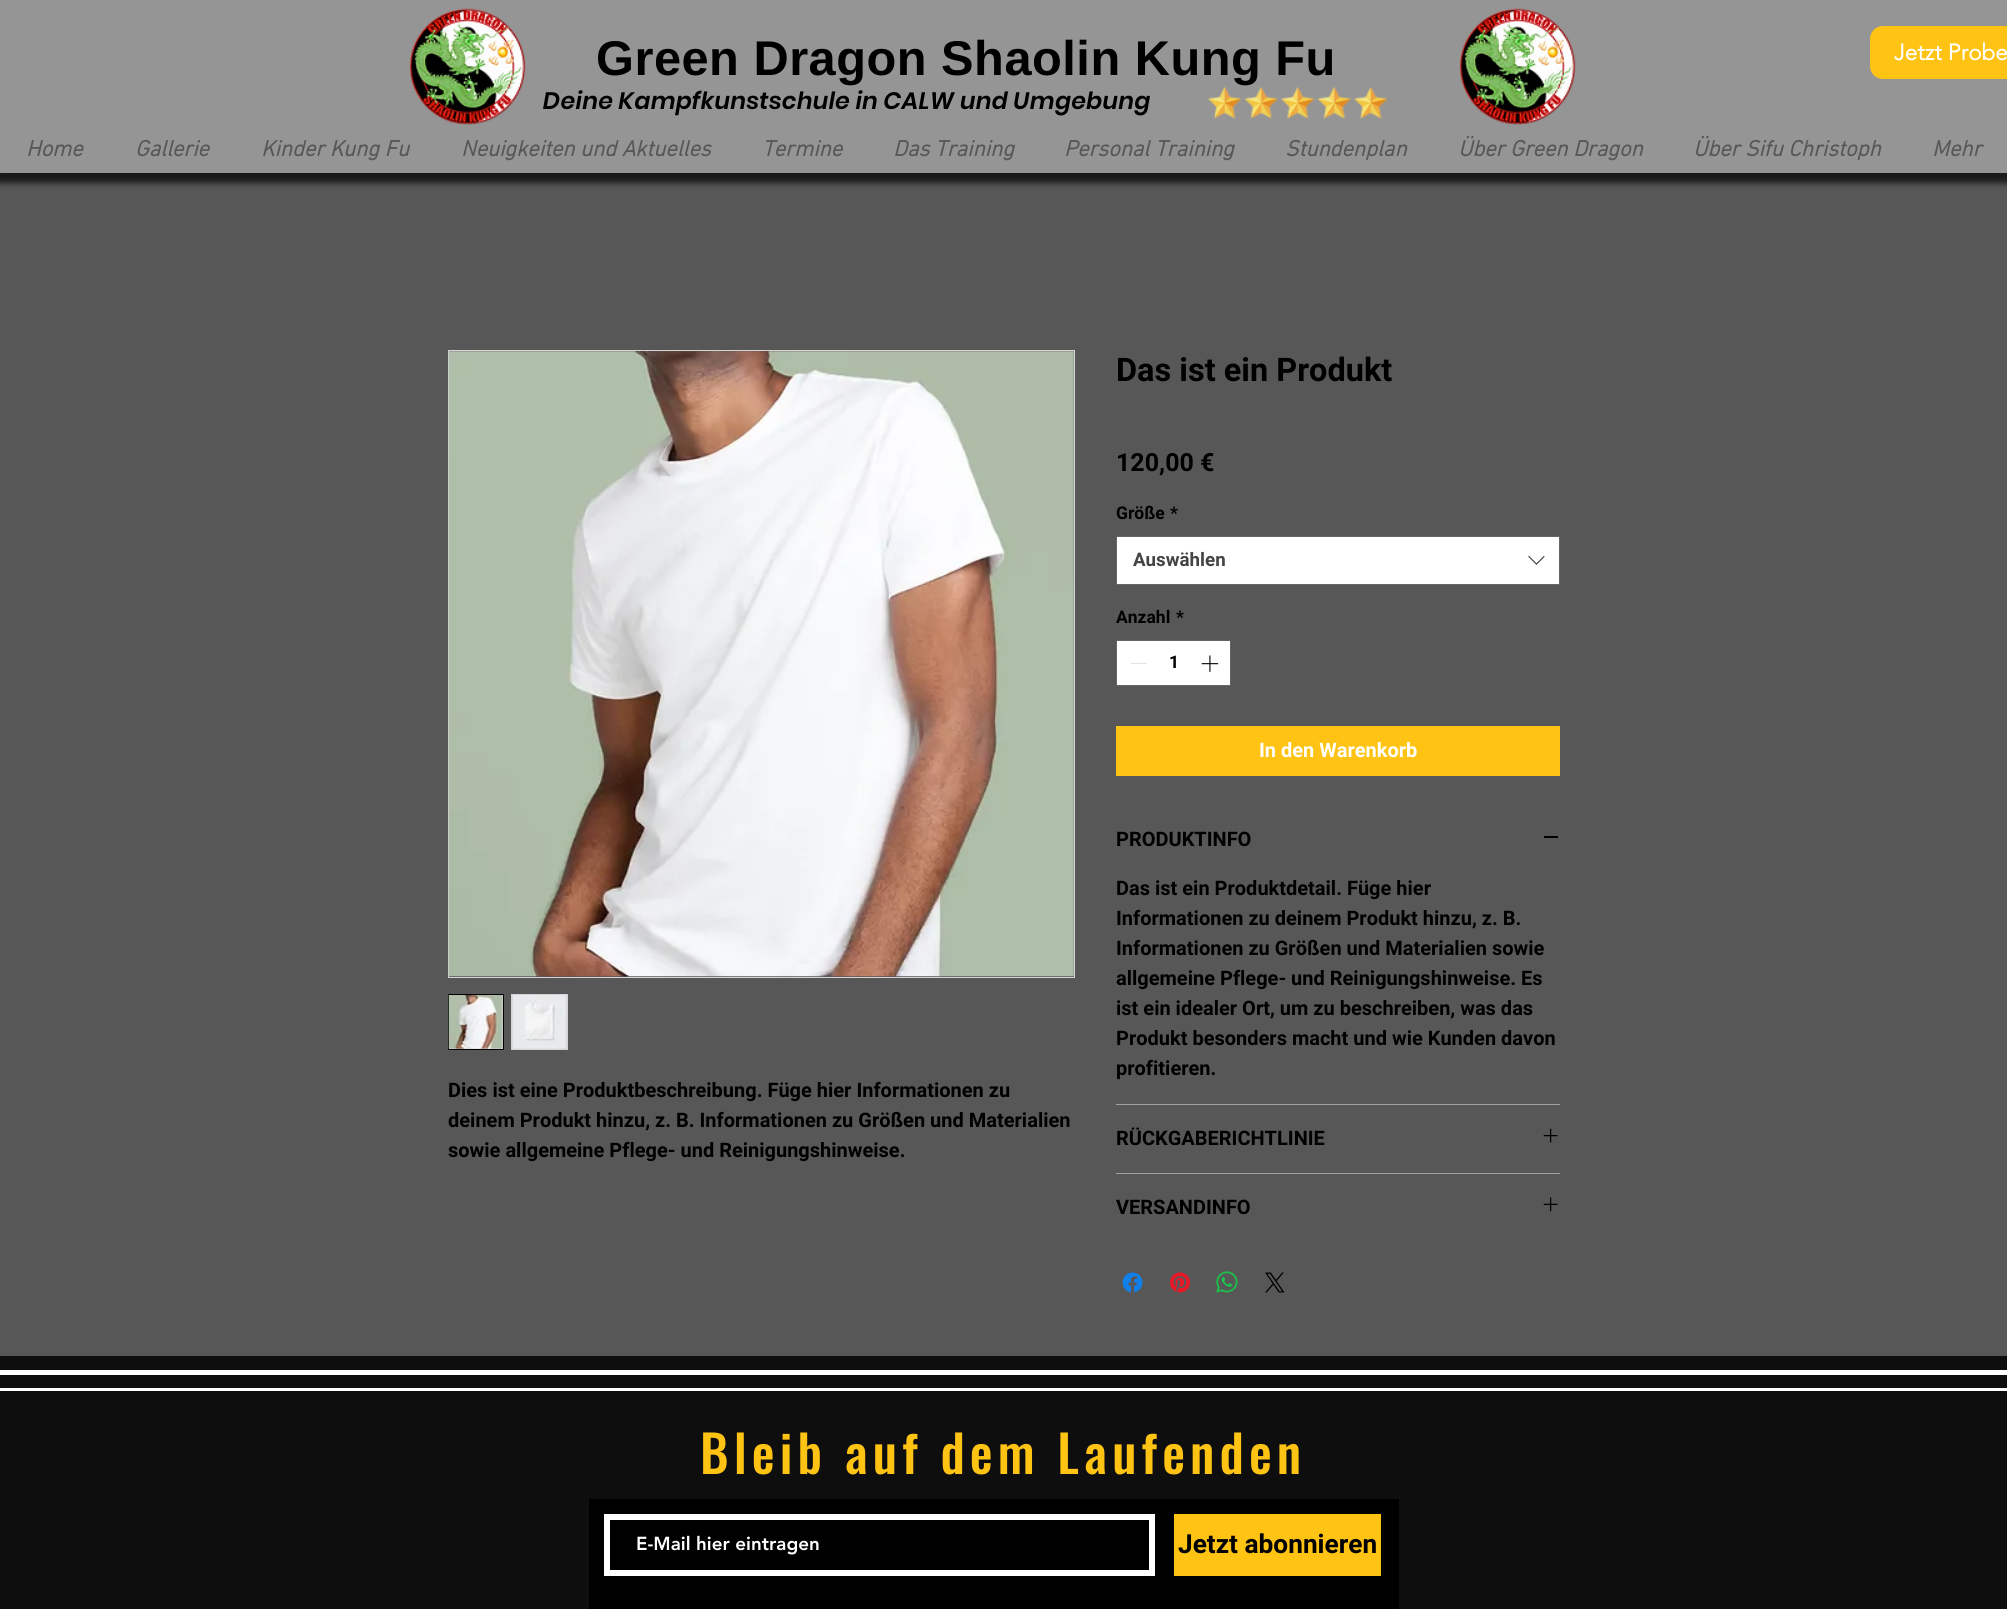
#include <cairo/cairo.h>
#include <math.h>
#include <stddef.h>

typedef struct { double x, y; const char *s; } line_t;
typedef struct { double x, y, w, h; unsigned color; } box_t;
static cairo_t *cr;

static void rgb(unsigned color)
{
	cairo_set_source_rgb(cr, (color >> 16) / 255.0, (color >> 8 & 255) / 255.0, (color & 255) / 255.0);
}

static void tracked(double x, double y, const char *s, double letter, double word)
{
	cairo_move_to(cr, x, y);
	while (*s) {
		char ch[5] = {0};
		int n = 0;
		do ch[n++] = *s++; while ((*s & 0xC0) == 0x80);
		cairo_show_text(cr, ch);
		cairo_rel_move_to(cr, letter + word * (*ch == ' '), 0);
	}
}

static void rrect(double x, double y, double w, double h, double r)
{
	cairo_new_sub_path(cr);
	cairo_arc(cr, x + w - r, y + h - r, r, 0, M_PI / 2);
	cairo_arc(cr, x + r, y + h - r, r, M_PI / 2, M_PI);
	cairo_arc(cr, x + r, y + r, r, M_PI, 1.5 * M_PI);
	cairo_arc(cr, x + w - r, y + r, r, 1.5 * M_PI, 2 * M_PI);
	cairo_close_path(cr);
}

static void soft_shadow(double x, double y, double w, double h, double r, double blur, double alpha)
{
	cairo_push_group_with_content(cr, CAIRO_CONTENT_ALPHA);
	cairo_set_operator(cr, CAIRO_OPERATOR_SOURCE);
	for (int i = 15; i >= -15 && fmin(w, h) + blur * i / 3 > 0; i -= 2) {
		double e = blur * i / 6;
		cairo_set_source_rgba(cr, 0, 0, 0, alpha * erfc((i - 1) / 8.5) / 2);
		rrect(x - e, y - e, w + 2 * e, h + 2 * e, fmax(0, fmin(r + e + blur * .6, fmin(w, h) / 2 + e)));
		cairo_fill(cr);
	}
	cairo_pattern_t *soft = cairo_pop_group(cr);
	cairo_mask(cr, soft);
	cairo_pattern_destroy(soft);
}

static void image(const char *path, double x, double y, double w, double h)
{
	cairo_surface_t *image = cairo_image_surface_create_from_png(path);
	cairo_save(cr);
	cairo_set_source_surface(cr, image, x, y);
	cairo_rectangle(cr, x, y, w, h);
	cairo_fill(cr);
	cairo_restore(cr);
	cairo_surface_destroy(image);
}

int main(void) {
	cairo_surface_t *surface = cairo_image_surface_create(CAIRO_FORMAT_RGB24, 2007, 1609);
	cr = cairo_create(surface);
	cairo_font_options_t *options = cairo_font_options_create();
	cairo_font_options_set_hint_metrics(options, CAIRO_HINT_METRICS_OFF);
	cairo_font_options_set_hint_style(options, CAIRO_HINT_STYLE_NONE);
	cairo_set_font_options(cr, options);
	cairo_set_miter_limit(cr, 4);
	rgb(0x575757);
	cairo_paint(cr);
	cairo_save(cr);
	cairo_set_fill_rule(cr, CAIRO_FILL_RULE_EVEN_ODD);
	cairo_new_path(cr);
	cairo_move_to(cr, 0, 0);
	cairo_line_to(cr, 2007, 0);
	cairo_line_to(cr, 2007, 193);
	cairo_line_to(cr, 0, 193);
	cairo_close_path(cr);
	cairo_move_to(cr, 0, 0);
	cairo_line_to(cr, 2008, 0);
	cairo_line_to(cr, 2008, 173);
	cairo_line_to(cr, 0, 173);
	cairo_close_path(cr);
	cairo_clip(cr);
	rgb(0x000000);
	soft_shadow(-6, -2, 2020, 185, 0, 3, 0.7);
	cairo_restore(cr);
	cairo_set_source_rgba(cr, 0.839, 0.831, 0.831, 0.5);
	cairo_rectangle(cr, 0, 0, 2007, 173);
	cairo_fill(cr);
	image("img/1.png", 409, 8, 117, 117);
	image("img/2.png", 1459, 8, 117, 117);
	rgb(0xffc314);
	rrect(1870, 26, 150, 53, 13);
	cairo_fill(cr);
	image("img/3.png", 1208, 86, 180, 33);
	cairo_rectangle(cr, 448.5, 350.5, 626, 627);
	rgb(0xd6d4d4);
	cairo_set_line_width(cr, 1);
	cairo_stroke(cr);
	image("img/4.png", 448, 351, 626, 626);
	cairo_rectangle(cr, 448.5, 994.5, 55, 55);
	cairo_fill_preserve(cr);
	rgb(0x000000);
	cairo_stroke(cr);
	image("img/5.png", 448, 995, 55, 54);
	rgb(0xd6d4d4);
	cairo_rectangle(cr, 511, 994, 57, 56);
	cairo_fill(cr);
	image("img/6.png", 512, 995, 55, 54);
	rgb(0xffffff);
	cairo_rectangle(cr, 1116.5, 536.5, 443, 48);
	cairo_fill_preserve(cr);
	rgb(0x666666);
	cairo_stroke(cr);
	image("img/7.png", 1528, 555, 17, 10);
	rgb(0xffffff);
	cairo_rectangle(cr, 1116.5, 640.5, 114, 45);
	cairo_fill_preserve(cr);
	rgb(0x666666);
	cairo_stroke(cr);
	rgb(0xe3e3e3);
	cairo_rectangle(cr, 1131, 663, 16, 1);
	cairo_fill(cr);
	image("img/8.png", 1201, 655, 18, 17);
	{
		static const box_t items[] = {
			{1116, 726, 444, 50, 0xffc314},
			{1116, 1104, 444, 1, 0xa1a1a1},
			{1544, 836, 14, 2, 0x000000},
			{1116, 1173, 444, 1, 0xa1a1a1},
		};
		for (size_t i = 0; i < sizeof items / sizeof *items; i++) {
			rgb(items[i].color);
			cairo_rectangle(cr, items[i].x, items[i].y, items[i].w, items[i].h);
			cairo_fill(cr);
		}
	}
	image("img/9.png", 1543, 1128, 15, 15);
	image("img/10.png", 1543, 1197, 15, 15);
	image("img/11.png", 1122, 1272, 21, 21);
	image("img/12.png", 1170, 1272, 20, 21);
	image("img/13.png", 1216, 1271, 22, 22);
	image("img/14.png", 1265, 1272, 20, 21);
	{
		static const box_t items[] = {
			{0, 1356, 2007, 253, 0x0e0e0e},
			{0, 1370, 2007, 5, 0xffffff},
			{0, 1388, 2007, 3, 0xffffff},
			{589, 1499, 810, 110, 0x000000},
		};
		for (size_t i = 0; i < sizeof items / sizeof *items; i++) {
			rgb(items[i].color);
			cairo_rectangle(cr, items[i].x, items[i].y, items[i].w, items[i].h);
			cairo_fill(cr);
		}
	}
	cairo_rectangle(cr, 607, 1517, 545, 56);
	rgb(0xffffff);
	cairo_set_line_width(cr, 6);
	cairo_stroke(cr);
	rgb(0xffc314);
	cairo_rectangle(cr, 1174, 1514, 207, 62);
	cairo_fill(cr);
	cairo_select_font_face(cr, "Liberation Sans", CAIRO_FONT_SLANT_NORMAL, CAIRO_FONT_WEIGHT_BOLD);
	cairo_set_font_size(cr, 48.75);
	rgb(0x000000);
	tracked(596, 75, "Green Dragon Shaolin Kung Fu", 0.5, 0);
	cairo_select_font_face(cr, "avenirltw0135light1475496", CAIRO_FONT_SLANT_NORMAL, CAIRO_FONT_WEIGHT_BOLD);
	cairo_set_font_size(cr, 22.5);
	rgb(0xffffff);
	cairo_move_to(cr, 1894, 60);
	cairo_show_text(cr, "Jetzt Probe");
	cairo_select_font_face(cr, "Poppins SemiBold", CAIRO_FONT_SLANT_ITALIC, CAIRO_FONT_WEIGHT_NORMAL);
	cairo_set_font_size(cr, 23.75);
	rgb(0x000000);
	tracked(543, 109, "Deine Kampfkunstschule in CALW und Umgebung", 0.25, 0);
	cairo_select_font_face(cr, "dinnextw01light", CAIRO_FONT_SLANT_ITALIC, CAIRO_FONT_WEIGHT_BOLD);
	cairo_set_font_size(cr, 22.5);
	rgb(0x575757);
	{
		static const line_t items[] = {
			{26, 156, "Home"},
			{135, 156, "Gallerie"},
			{261, 156, "Kinder Kung Fu"},
			{461, 156, "Neuigkeiten und Aktuelles"},
			{762, 156, "Termine"},
			{893, 156, "Das Training"},
			{1064, 156, "Personal Training"},
			{1285, 156, "Stundenplan"},
			{1458, 156, "Über Green Dragon"},
			{1693, 156, "Über Sifu Christoph"},
			{1932, 156, "Mehr"},
		};
		for (size_t i = 0; i < sizeof items / sizeof *items; i++) {
			cairo_move_to(cr, items[i].x, items[i].y);
			cairo_show_text(cr, items[i].s);
		}
	}
	cairo_select_font_face(cr, "Roboto", CAIRO_FONT_SLANT_NORMAL, CAIRO_FONT_WEIGHT_BOLD);
	cairo_set_font_size(cr, 20);
	rgb(0x000000);
	{
		static const line_t items[] = {
			{448, 1097, "Dies ist eine Produktbeschreibung. Füge hier Informationen zu"},
			{448, 1127, "deinem Produkt hinzu, z. B. Informationen zu Größen und Materialien"},
			{448, 1157, "sowie allgemeine Pflege- und Reinigungshinweise."},
		};
		for (size_t i = 0; i < sizeof items / sizeof *items; i++) {
			cairo_move_to(cr, items[i].x, items[i].y);
			cairo_show_text(cr, items[i].s);
		}
	}
	cairo_set_font_size(cr, 32.5);
	cairo_move_to(cr, 1116, 381);
	cairo_show_text(cr, "Das ist ein Produkt");
	cairo_set_font_size(cr, 25);
	cairo_move_to(cr, 1116, 471);
	cairo_show_text(cr, "120,00 €");
	cairo_set_font_size(cr, 17.5);
	cairo_move_to(cr, 1116, 519);
	cairo_show_text(cr, "Größe");
	cairo_move_to(cr, 1170, 519);
	cairo_show_text(cr, "*");
	cairo_set_font_size(cr, 18.75);
	rgb(0x444444);
	cairo_move_to(cr, 1133, 566);
	cairo_show_text(cr, "Auswählen");
	cairo_set_font_size(cr, 17.5);
	rgb(0x000000);
	{
		static const line_t items[] = {
			{1116, 623, "Anzahl"},
			{1176, 623, "*"},
			{1169, 668, "1"},
		};
		for (size_t i = 0; i < sizeof items / sizeof *items; i++) {
			cairo_move_to(cr, items[i].x, items[i].y);
			cairo_show_text(cr, items[i].s);
		}
	}
	cairo_set_font_size(cr, 20);
	rgb(0xffffff);
	cairo_move_to(cr, 1259, 757);
	cairo_show_text(cr, "In den Warenkorb");
	rgb(0x000000);
	{
		static const line_t items[] = {
			{1116, 846, "PRODUKTINFO"},
			{1116, 895, "Das ist ein Produktdetail. Füge hier"},
			{1116, 925, "Informationen zu deinem Produkt hinzu, z. B."},
			{1116, 955, "Informationen zu Größen und Materialien sowie"},
			{1116, 985, "allgemeine Pflege- und Reinigungshinweise. Es"},
			{1116, 1015, "ist ein idealer Ort, um zu beschreiben, was das"},
			{1116, 1045, "Produkt besonders macht und wie Kunden davon"},
			{1116, 1075, "profitieren."},
			{1116, 1145, "RÜCKGABERICHTLINIE"},
			{1116, 1214, "VERSANDINFO"},
		};
		for (size_t i = 0; i < sizeof items / sizeof *items; i++) {
			cairo_move_to(cr, items[i].x, items[i].y);
			cairo_show_text(cr, items[i].s);
		}
	}
	cairo_select_font_face(cr, "Oswald Medium", CAIRO_FONT_SLANT_NORMAL, CAIRO_FONT_WEIGHT_NORMAL);
	cairo_set_font_size(cr, 51.25);
	rgb(0xffc314);
	tracked(700, 1474, "Bleib auf dem Laufenden", 5.1, 0);
	cairo_select_font_face(cr, "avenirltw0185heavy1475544 Black", CAIRO_FONT_SLANT_NORMAL, CAIRO_FONT_WEIGHT_NORMAL);
	cairo_set_font_size(cr, 18.75);
	rgb(0xffffff);
	cairo_move_to(cr, 636, 1550);
	cairo_show_text(cr, "E-Mail hier eintragen");
	cairo_select_font_face(cr, "Roboto", CAIRO_FONT_SLANT_NORMAL, CAIRO_FONT_WEIGHT_BOLD);
	cairo_set_font_size(cr, 26.25);
	rgb(0x000000);
	cairo_move_to(cr, 1178, 1553);
	cairo_show_text(cr, "Jetzt abonnieren");
	cairo_surface_write_to_png(surface, "page.png");
	cairo_font_options_destroy(options);
	cairo_destroy(cr);
	cairo_surface_destroy(surface);
	return 0;
}
